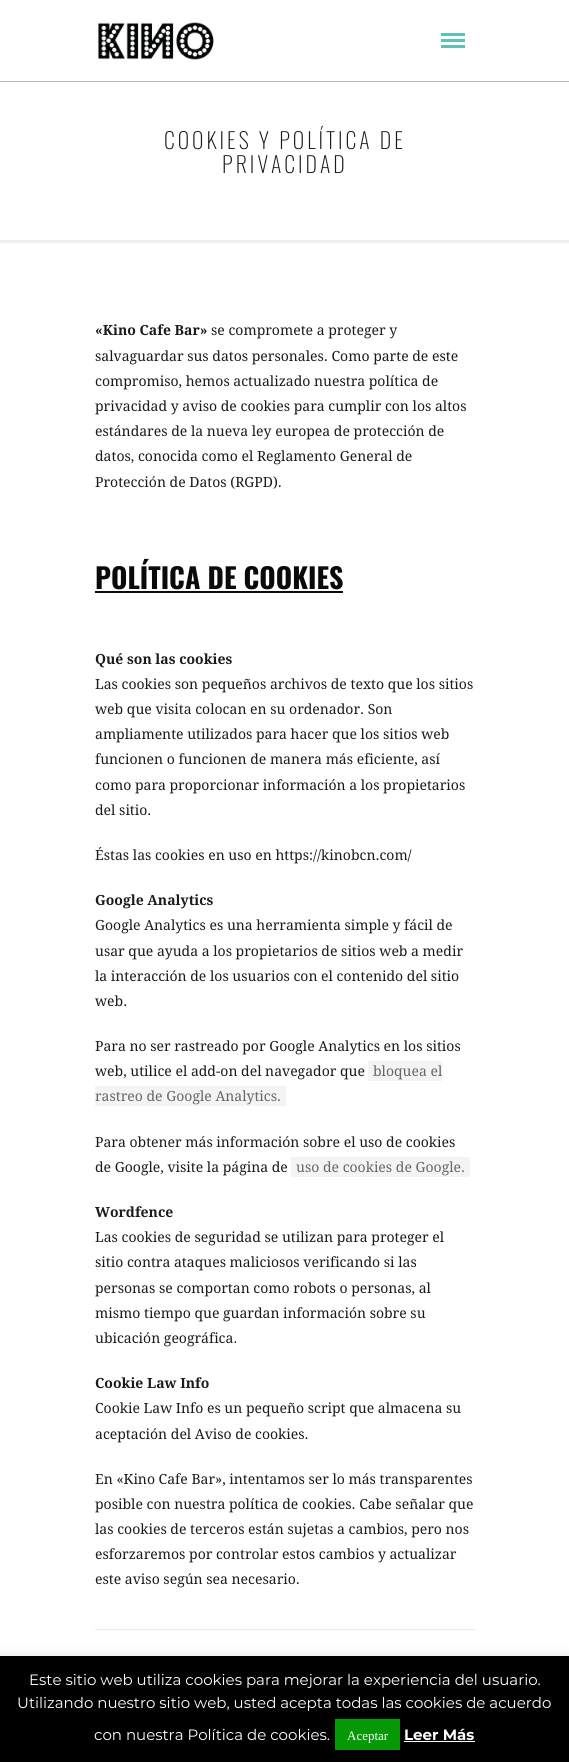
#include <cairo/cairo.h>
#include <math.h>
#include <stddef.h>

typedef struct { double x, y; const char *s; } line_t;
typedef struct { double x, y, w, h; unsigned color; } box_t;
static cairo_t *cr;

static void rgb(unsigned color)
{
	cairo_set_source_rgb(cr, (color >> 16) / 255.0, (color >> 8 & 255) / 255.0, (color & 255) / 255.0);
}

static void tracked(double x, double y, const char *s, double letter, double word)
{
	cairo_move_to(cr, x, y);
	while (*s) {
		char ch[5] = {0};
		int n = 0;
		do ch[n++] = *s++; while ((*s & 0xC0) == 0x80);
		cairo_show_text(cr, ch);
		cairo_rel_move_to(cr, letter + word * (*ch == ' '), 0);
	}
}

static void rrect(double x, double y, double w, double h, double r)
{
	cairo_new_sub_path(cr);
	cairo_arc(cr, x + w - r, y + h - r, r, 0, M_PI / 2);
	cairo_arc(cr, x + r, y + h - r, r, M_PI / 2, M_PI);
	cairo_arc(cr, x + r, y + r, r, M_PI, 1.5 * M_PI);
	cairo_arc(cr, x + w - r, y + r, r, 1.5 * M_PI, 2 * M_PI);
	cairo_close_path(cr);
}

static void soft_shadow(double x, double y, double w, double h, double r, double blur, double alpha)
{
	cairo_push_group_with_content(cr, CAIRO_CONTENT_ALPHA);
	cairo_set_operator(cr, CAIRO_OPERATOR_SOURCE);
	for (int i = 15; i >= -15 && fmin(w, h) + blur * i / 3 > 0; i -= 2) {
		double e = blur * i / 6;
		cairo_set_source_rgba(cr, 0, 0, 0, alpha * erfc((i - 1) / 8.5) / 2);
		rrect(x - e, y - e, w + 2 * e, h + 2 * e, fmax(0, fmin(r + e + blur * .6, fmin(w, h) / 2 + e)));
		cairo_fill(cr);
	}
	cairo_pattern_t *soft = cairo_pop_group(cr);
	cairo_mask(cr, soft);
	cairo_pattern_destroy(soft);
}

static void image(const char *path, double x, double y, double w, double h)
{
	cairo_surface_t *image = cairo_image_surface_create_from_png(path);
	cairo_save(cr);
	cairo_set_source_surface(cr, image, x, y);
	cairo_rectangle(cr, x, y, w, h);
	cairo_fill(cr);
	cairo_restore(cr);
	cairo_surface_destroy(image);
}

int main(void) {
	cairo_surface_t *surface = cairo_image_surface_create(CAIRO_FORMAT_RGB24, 569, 1762);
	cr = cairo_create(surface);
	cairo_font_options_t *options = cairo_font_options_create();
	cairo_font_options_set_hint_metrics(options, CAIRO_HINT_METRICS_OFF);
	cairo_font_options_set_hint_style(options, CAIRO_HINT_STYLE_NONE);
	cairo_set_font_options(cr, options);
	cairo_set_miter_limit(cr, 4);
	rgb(0xffffff);
	cairo_paint(cr);
	rgb(0xbababa);
	cairo_rectangle(cr, 0, 81, 569, 1);
	cairo_fill(cr);
	image("img/1.png", 98, 22, 116, 38);
	{
		static const box_t items[] = {
			{441, 33, 24, 3, 0x5ec0bb},
			{441, 39, 24, 3, 0x5ec0bb},
			{441, 45, 24, 3, 0x5ec0bb},
			{0, 240, 569, 3, 0xeeeeee},
			{95, 591, 248, 2, 0x0a0a0a},
			{368, 1061, 74, 20, 0xf4f4f4},
			{95, 1086, 191, 20, 0xf4f4f4},
			{291, 1157, 179, 20, 0xf4f4f4},
			{95, 1629, 380, 1, 0xebebeb},
		};
		for (size_t i = 0; i < sizeof items / sizeof *items; i++) {
			rgb(items[i].color);
			cairo_rectangle(cr, items[i].x, items[i].y, items[i].w, items[i].h);
			cairo_fill(cr);
		}
	}
	rgb(0xacabab);
	soft_shadow(0, 1655, 569, 106, 0, 5, 0.3);
	{
		static const box_t items[] = {
			{0, 1656, 569, 106, 0x000000},
			{335, 1719, 65, 31, 0x059a05},
			{404, 1741, 71, 1, 0xffffff},
		};
		for (size_t i = 0; i < sizeof items / sizeof *items; i++) {
			rgb(items[i].color);
			cairo_rectangle(cr, items[i].x, items[i].y, items[i].w, items[i].h);
			cairo_fill(cr);
		}
	}
	cairo_select_font_face(cr, "Oswald ExtraLight", CAIRO_FONT_SLANT_NORMAL, CAIRO_FONT_WEIGHT_NORMAL);
	cairo_set_font_size(cr, 22);
	rgb(0x1a1a1a);
	tracked(164, 149, "COOKIES Y POLÍTICA DE", 3, 0);
	tracked(222, 173, "PRIVACIDAD", 3, 0);
	cairo_select_font_face(cr, "Droid Serif", CAIRO_FONT_SLANT_NORMAL, CAIRO_FONT_WEIGHT_BOLD);
	cairo_set_font_size(cr, 14);
	cairo_move_to(cr, 95, 335);
	cairo_show_text(cr, "«Kino Cafe Bar»");
	cairo_select_font_face(cr, "Droid Serif", CAIRO_FONT_SLANT_NORMAL, CAIRO_FONT_WEIGHT_NORMAL);
	{
		static const line_t items[] = {
			{211, 335, "se compromete a proteger y"},
			{95, 361, "salvaguardar sus datos personales. Como parte de este"},
			{95, 386, "compromiso, hemos actualizado nuestra política de"},
			{95, 411, "privacidad y aviso de cookies para cumplir con los altos"},
			{95, 436, "estándares de la nueva ley europea de protección de"},
			{95, 461, "datos, conocida como el Reglamento General de"},
			{95, 487, "Protección de Datos (RGPD)."},
		};
		for (size_t i = 0; i < sizeof items / sizeof *items; i++) {
			cairo_move_to(cr, items[i].x, items[i].y);
			cairo_show_text(cr, items[i].s);
		}
	}
	cairo_select_font_face(cr, "Oswald", CAIRO_FONT_SLANT_NORMAL, CAIRO_FONT_WEIGHT_BOLD);
	cairo_set_font_size(cr, 28);
	rgb(0x0a0a0a);
	cairo_move_to(cr, 95, 589);
	cairo_show_text(cr, "POLÍTICA DE COOKIES");
	cairo_select_font_face(cr, "Droid Serif", CAIRO_FONT_SLANT_NORMAL, CAIRO_FONT_WEIGHT_BOLD);
	cairo_set_font_size(cr, 14);
	rgb(0x1a1a1a);
	cairo_move_to(cr, 95, 664);
	cairo_show_text(cr, "Qué son las cookies");
	cairo_select_font_face(cr, "Droid Serif", CAIRO_FONT_SLANT_NORMAL, CAIRO_FONT_WEIGHT_NORMAL);
	{
		static const line_t items[] = {
			{95, 689, "Las cookies son pequeños archivos de texto que los sitios"},
			{95, 714, "web que visita colocan en su ordenador. Son"},
			{95, 739, "ampliamente utilizados para hacer que los sitios web"},
			{95, 764, "funcionen o funcionen de manera más eficiente, así"},
			{95, 790, "como para proporcionar información a los propietarios"},
			{95, 815, "del sitio."},
			{95, 860, "Éstas las cookies en uso en https://kinobcn.com/"},
		};
		for (size_t i = 0; i < sizeof items / sizeof *items; i++) {
			cairo_move_to(cr, items[i].x, items[i].y);
			cairo_show_text(cr, items[i].s);
		}
	}
	cairo_select_font_face(cr, "Droid Serif", CAIRO_FONT_SLANT_NORMAL, CAIRO_FONT_WEIGHT_BOLD);
	cairo_move_to(cr, 95, 905);
	cairo_show_text(cr, "Google Analytics");
	cairo_select_font_face(cr, "Droid Serif", CAIRO_FONT_SLANT_NORMAL, CAIRO_FONT_WEIGHT_NORMAL);
	{
		static const line_t items[] = {
			{95, 930, "Google Analytics es una herramienta simple y fácil de"},
			{95, 956, "usar que ayuda a los propietarios de sitios web a medir"},
			{95, 981, "la interacción de los usuarios con el contenido del sitio"},
			{95, 1006, "web."},
			{95, 1051, "Para no ser rastreado por Google Analytics en los sitios"},
			{95, 1076, "web, utilice el add-on del navegador que"},
		};
		for (size_t i = 0; i < sizeof items / sizeof *items; i++) {
			cairo_move_to(cr, items[i].x, items[i].y);
			cairo_show_text(cr, items[i].s);
		}
	}
	rgb(0x666666);
	cairo_move_to(cr, 373, 1076);
	cairo_show_text(cr, "bloquea el");
	cairo_move_to(cr, 95, 1101);
	cairo_show_text(cr, "rastreo de Google Analytics.");
	rgb(0x1a1a1a);
	cairo_move_to(cr, 95, 1147);
	cairo_show_text(cr, "Para obtener más información sobre el uso de cookies");
	cairo_move_to(cr, 95, 1172);
	cairo_show_text(cr, "de Google, visite la página de");
	rgb(0x666666);
	cairo_move_to(cr, 296, 1172);
	cairo_show_text(cr, "uso de cookies de Google.");
	cairo_select_font_face(cr, "Droid Serif", CAIRO_FONT_SLANT_NORMAL, CAIRO_FONT_WEIGHT_BOLD);
	rgb(0x1a1a1a);
	cairo_move_to(cr, 95, 1217);
	cairo_show_text(cr, "Wordfence");
	cairo_select_font_face(cr, "Droid Serif", CAIRO_FONT_SLANT_NORMAL, CAIRO_FONT_WEIGHT_NORMAL);
	{
		static const line_t items[] = {
			{95, 1242, "Las cookies de seguridad se utilizan para proteger el"},
			{95, 1267, "sitio contra ataques maliciosos verificando si las"},
			{95, 1293, "personas se comportan como robots o personas, al"},
			{95, 1318, "mismo tiempo que guardan información sobre su"},
			{95, 1343, "ubicación geográfica."},
		};
		for (size_t i = 0; i < sizeof items / sizeof *items; i++) {
			cairo_move_to(cr, items[i].x, items[i].y);
			cairo_show_text(cr, items[i].s);
		}
	}
	cairo_select_font_face(cr, "Droid Serif", CAIRO_FONT_SLANT_NORMAL, CAIRO_FONT_WEIGHT_BOLD);
	cairo_move_to(cr, 95, 1388);
	cairo_show_text(cr, "Cookie Law Info");
	cairo_select_font_face(cr, "Droid Serif", CAIRO_FONT_SLANT_NORMAL, CAIRO_FONT_WEIGHT_NORMAL);
	{
		static const line_t items[] = {
			{95, 1413, "Cookie Law Info es un pequeño script que almacena su"},
			{95, 1439, "aceptación del Aviso de cookies."},
			{95, 1484, "En «Kino Cafe Bar», intentamos ser lo más transparentes"},
			{95, 1509, "posible con nuestra política de cookies. Cabe señalar que"},
			{95, 1534, "las cookies de terceros están sujetas a cambios, pero nos"},
			{95, 1559, "esforzaremos por controlar estos cambios y actualizar"},
			{95, 1584, "este aviso según sea necesario."},
		};
		for (size_t i = 0; i < sizeof items / sizeof *items; i++) {
			cairo_move_to(cr, items[i].x, items[i].y);
			cairo_show_text(cr, items[i].s);
		}
	}
	cairo_select_font_face(cr, "Montserrat", CAIRO_FONT_SLANT_NORMAL, CAIRO_FONT_WEIGHT_NORMAL);
	cairo_set_font_size(cr, 15);
	rgb(0xffffff);
	{
		static const line_t items[] = {
			{29, 1685, "Este sitio web utiliza cookies para mejorar la experiencia del usuario."},
			{17, 1708, "Utilizando nuestro sitio web, usted acepta todas las cookies de acuerdo"},
			{94, 1740, "con nuestra Política de cookies."},
		};
		for (size_t i = 0; i < sizeof items / sizeof *items; i++) {
			cairo_move_to(cr, items[i].x, items[i].y);
			cairo_show_text(cr, items[i].s);
		}
	}
	cairo_select_font_face(cr, "Liberation Serif", CAIRO_FONT_SLANT_NORMAL, CAIRO_FONT_WEIGHT_NORMAL);
	cairo_set_font_size(cr, 13);
	cairo_move_to(cr, 347, 1740);
	cairo_show_text(cr, "Aceptar");
	cairo_select_font_face(cr, "Montserrat", CAIRO_FONT_SLANT_NORMAL, CAIRO_FONT_WEIGHT_BOLD);
	cairo_set_font_size(cr, 15);
	cairo_move_to(cr, 404, 1740);
	cairo_show_text(cr, "Leer Más");
	cairo_surface_write_to_png(surface, "page.png");
	cairo_font_options_destroy(options);
	cairo_destroy(cr);
	cairo_surface_destroy(surface);
	return 0;
}
